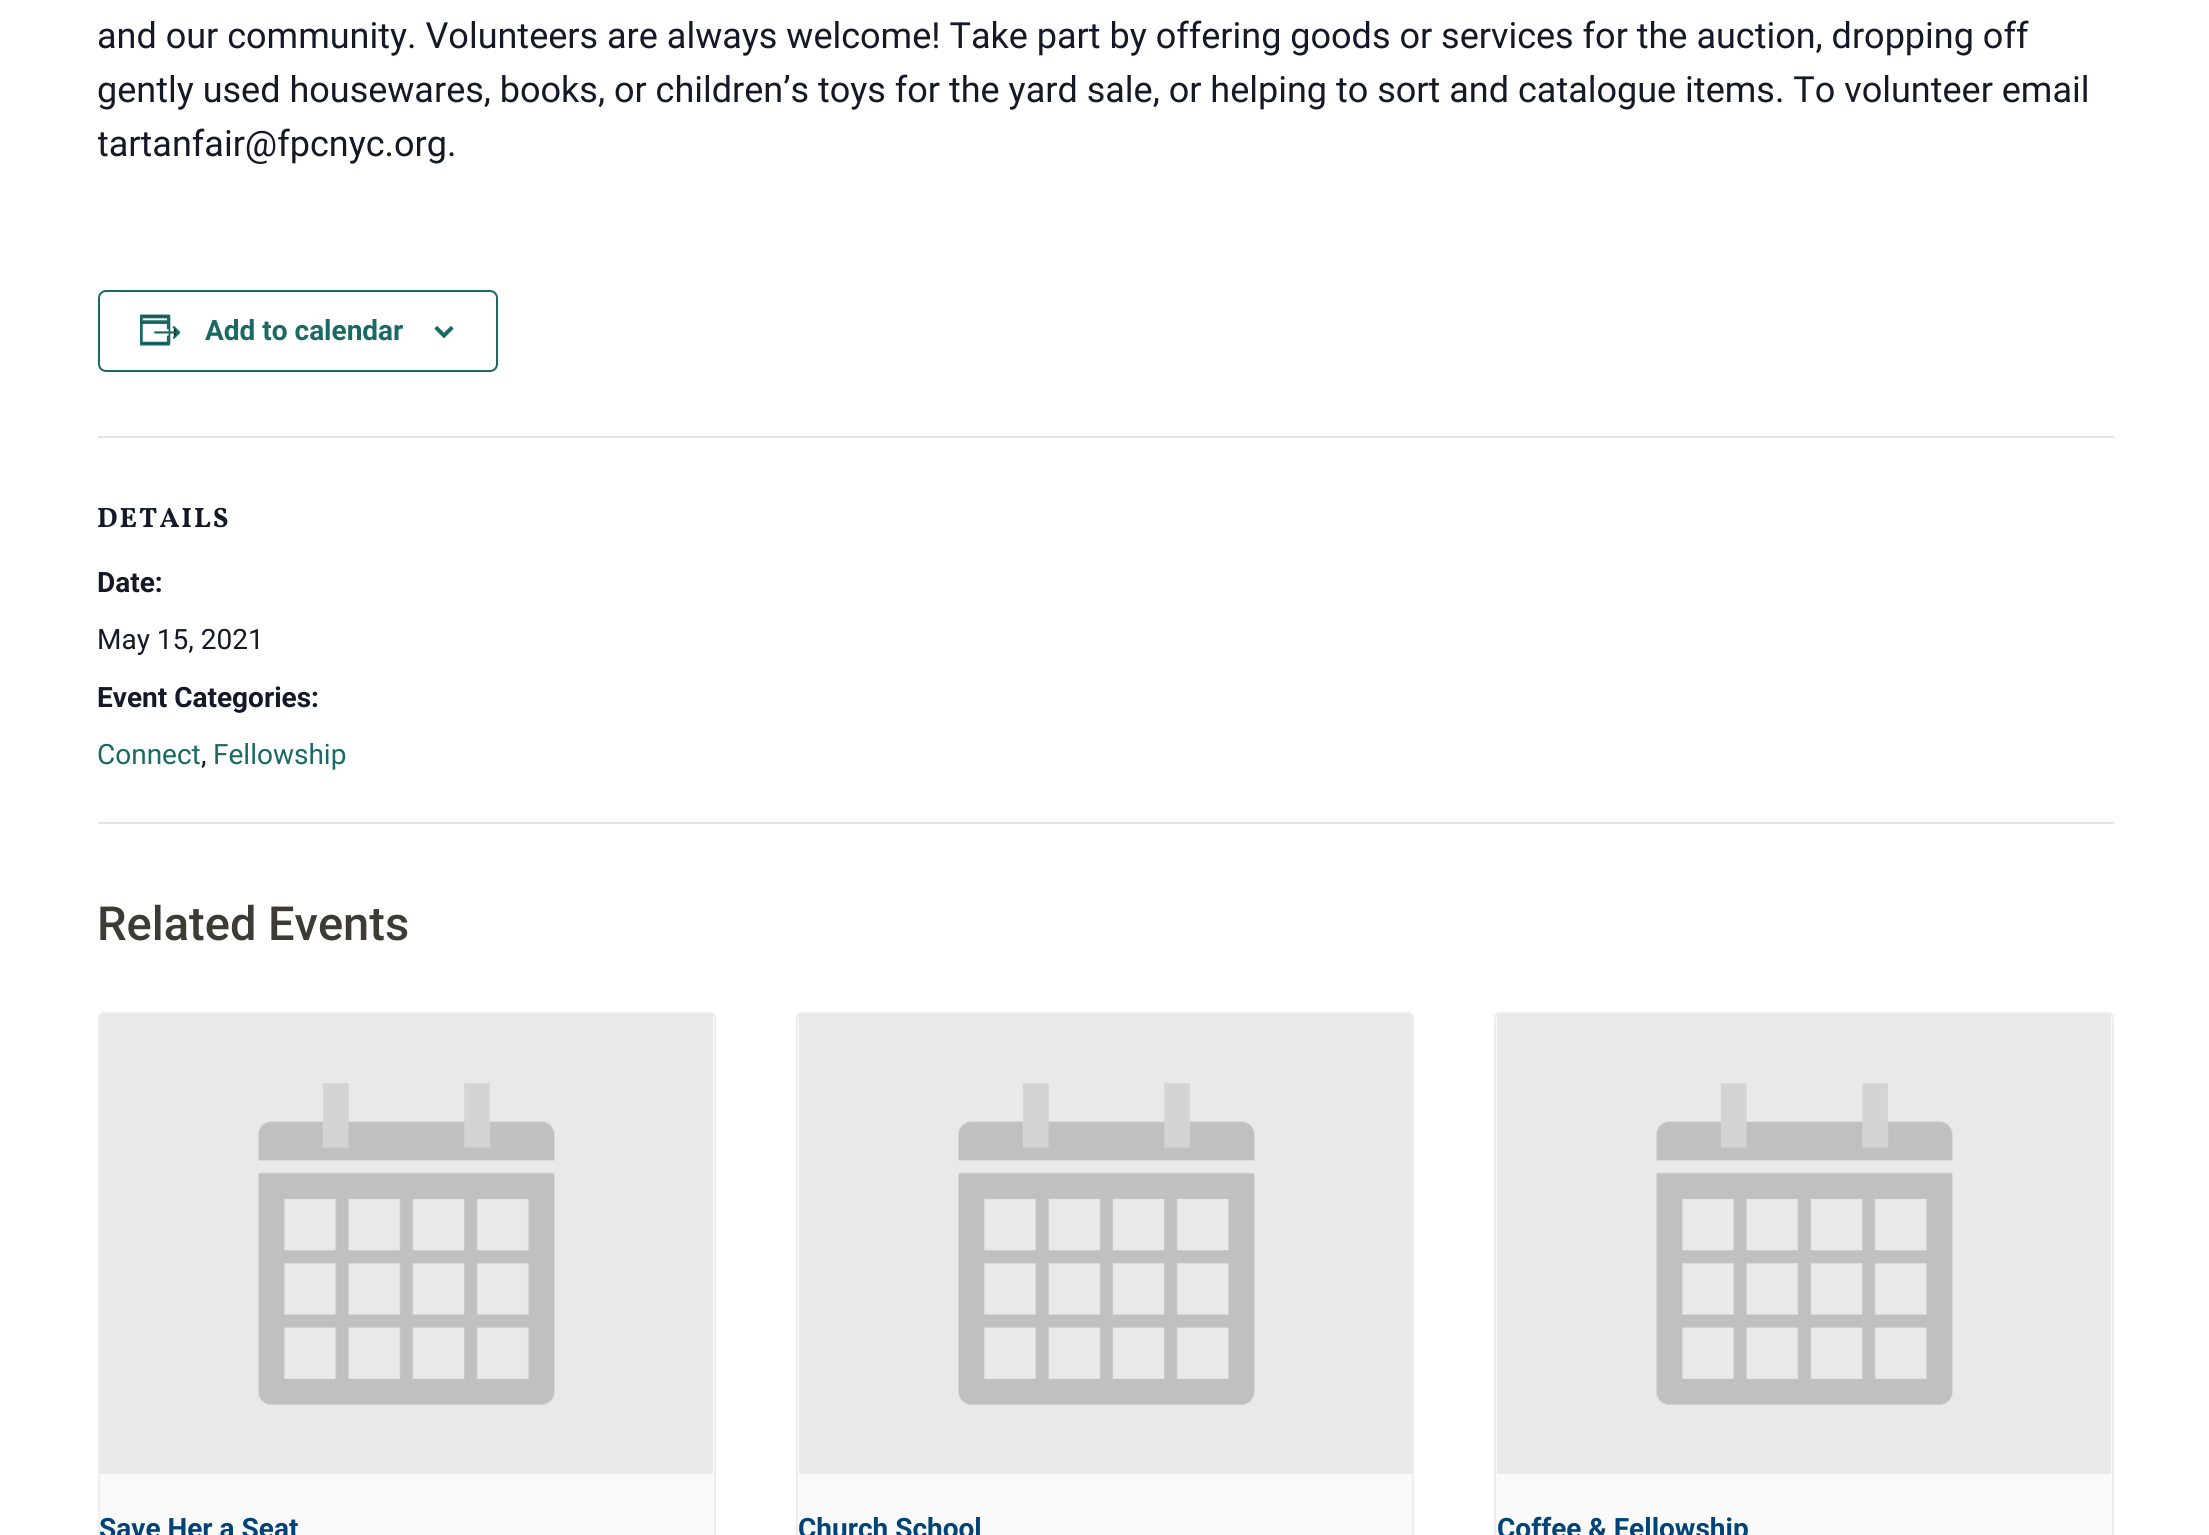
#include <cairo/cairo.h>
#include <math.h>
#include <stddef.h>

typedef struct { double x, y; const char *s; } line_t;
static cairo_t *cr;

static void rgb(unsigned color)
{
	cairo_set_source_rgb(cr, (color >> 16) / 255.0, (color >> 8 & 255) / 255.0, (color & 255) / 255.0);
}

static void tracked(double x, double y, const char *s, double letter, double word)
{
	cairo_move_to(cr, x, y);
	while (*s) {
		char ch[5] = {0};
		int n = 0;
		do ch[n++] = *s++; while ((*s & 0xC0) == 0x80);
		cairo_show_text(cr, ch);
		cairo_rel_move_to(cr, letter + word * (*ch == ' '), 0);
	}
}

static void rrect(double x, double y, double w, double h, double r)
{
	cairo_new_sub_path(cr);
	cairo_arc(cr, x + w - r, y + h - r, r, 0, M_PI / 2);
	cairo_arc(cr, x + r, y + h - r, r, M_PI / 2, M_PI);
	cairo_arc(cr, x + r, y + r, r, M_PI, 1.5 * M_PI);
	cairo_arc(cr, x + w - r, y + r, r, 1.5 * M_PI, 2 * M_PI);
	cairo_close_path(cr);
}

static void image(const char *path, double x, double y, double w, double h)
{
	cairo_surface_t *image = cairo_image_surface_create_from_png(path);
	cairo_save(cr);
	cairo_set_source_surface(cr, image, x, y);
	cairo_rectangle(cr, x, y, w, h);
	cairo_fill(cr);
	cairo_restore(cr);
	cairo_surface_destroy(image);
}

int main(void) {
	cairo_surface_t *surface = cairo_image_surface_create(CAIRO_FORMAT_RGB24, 2209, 1535);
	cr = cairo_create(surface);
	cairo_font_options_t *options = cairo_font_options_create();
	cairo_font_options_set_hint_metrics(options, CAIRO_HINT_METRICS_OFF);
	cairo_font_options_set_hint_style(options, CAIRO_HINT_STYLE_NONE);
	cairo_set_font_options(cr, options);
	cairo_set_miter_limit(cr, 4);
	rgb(0xffffff);
	cairo_paint(cr);
	rrect(99, 291, 398, 80, 7);
	rgb(0x196a64);
	cairo_stroke(cr);
	image("img/1.png", 140, 314, 41, 32);
	image("img/2.png", 434, 326, 20, 12);
	rgb(0xe4e4e4);
	cairo_rectangle(cr, 98, 436, 2016, 2);
	cairo_fill(cr);
	cairo_rectangle(cr, 98, 822, 2016, 2);
	cairo_fill(cr);
	rgb(0xfafafa);
	rrect(99, 1013, 616, 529, 5);
	cairo_fill_preserve(cr);
	rgb(0xeeeeee);
	cairo_stroke(cr);
	image("img/3.png", 100, 1014, 613, 460);
	rgb(0xfafafa);
	rrect(797, 1013, 616, 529, 5);
	cairo_fill_preserve(cr);
	rgb(0xeeeeee);
	cairo_stroke(cr);
	image("img/4.png", 799, 1014, 613, 460);
	rgb(0xfafafa);
	rrect(1495, 1013, 618, 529, 5);
	cairo_fill_preserve(cr);
	rgb(0xeeeeee);
	cairo_stroke(cr);
	image("img/5.png", 1497, 1014, 614, 460);
	cairo_select_font_face(cr, "Roboto", CAIRO_FONT_SLANT_NORMAL, CAIRO_FONT_WEIGHT_NORMAL);
	cairo_set_font_size(cr, 36);
	rgb(0x141827);
	cairo_move_to(cr, 97, 48);
	cairo_show_text(cr, "and our community. Volunteers are always welcome! Take part by offering goods or services for the auction, dropping off");
	cairo_move_to(cr, 97, 102);
	cairo_show_text(cr, "gently used housewares, books, or children’s toys for the yard sale, or helping to sort and catalogue items. To volunteer email");
	cairo_save(cr);
	cairo_rectangle(cr, 98, 0, 2016, 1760);
	cairo_clip(cr);
	cairo_move_to(cr, 97, 156);
	cairo_show_text(cr, "tartanfair@fpcnyc.org");
	cairo_restore(cr);
	cairo_move_to(cr, 447, 156);
	cairo_show_text(cr, ".");
	cairo_select_font_face(cr, "Roboto", CAIRO_FONT_SLANT_NORMAL, CAIRO_FONT_WEIGHT_BOLD);
	cairo_set_font_size(cr, 28);
	rgb(0x196a64);
	cairo_move_to(cr, 205, 340);
	cairo_show_text(cr, "Add to calendar");
	cairo_select_font_face(cr, "Vollkorn", CAIRO_FONT_SLANT_NORMAL, CAIRO_FONT_WEIGHT_BOLD);
	rgb(0x141827);
	tracked(97, 527, "DETAILS", 2, 0);
	cairo_select_font_face(cr, "Roboto", CAIRO_FONT_SLANT_NORMAL, CAIRO_FONT_WEIGHT_BOLD);
	cairo_move_to(cr, 97, 592);
	cairo_show_text(cr, "Date:");
	cairo_select_font_face(cr, "Roboto", CAIRO_FONT_SLANT_NORMAL, CAIRO_FONT_WEIGHT_NORMAL);
	cairo_move_to(cr, 97, 649);
	cairo_show_text(cr, "May 15, 2021");
	cairo_select_font_face(cr, "Roboto", CAIRO_FONT_SLANT_NORMAL, CAIRO_FONT_WEIGHT_BOLD);
	cairo_move_to(cr, 97, 707);
	cairo_show_text(cr, "Event Categories:");
	cairo_select_font_face(cr, "Roboto", CAIRO_FONT_SLANT_NORMAL, CAIRO_FONT_WEIGHT_NORMAL);
	rgb(0x196a64);
	cairo_move_to(cr, 97, 764);
	cairo_show_text(cr, "Connect");
	rgb(0x141827);
	cairo_move_to(cr, 201, 764);
	cairo_show_text(cr, ",");
	rgb(0x196a64);
	cairo_move_to(cr, 213, 764);
	cairo_show_text(cr, "Fellowship");
	cairo_select_font_face(cr, "Roboto Medium", CAIRO_FONT_SLANT_NORMAL, CAIRO_FONT_WEIGHT_NORMAL);
	cairo_set_font_size(cr, 47);
	rgb(0x3e3a34);
	cairo_move_to(cr, 97, 940);
	cairo_show_text(cr, "Related Events");
	cairo_select_font_face(cr, "Roboto", CAIRO_FONT_SLANT_NORMAL, CAIRO_FONT_WEIGHT_BOLD);
	cairo_set_font_size(cr, 28);
	rgb(0x004477);
	{
		static const line_t items[] = {
			{99, 1538, "Save Her a Seat"},
			{798, 1538, "Church School"},
			{1497, 1538, "Coffee & Fellowship"},
		};
		for (size_t i = 0; i < sizeof items / sizeof *items; i++) {
			cairo_move_to(cr, items[i].x, items[i].y);
			cairo_show_text(cr, items[i].s);
		}
	}
	cairo_surface_write_to_png(surface, "page.png");
	cairo_font_options_destroy(options);
	cairo_destroy(cr);
	cairo_surface_destroy(surface);
	return 0;
}
